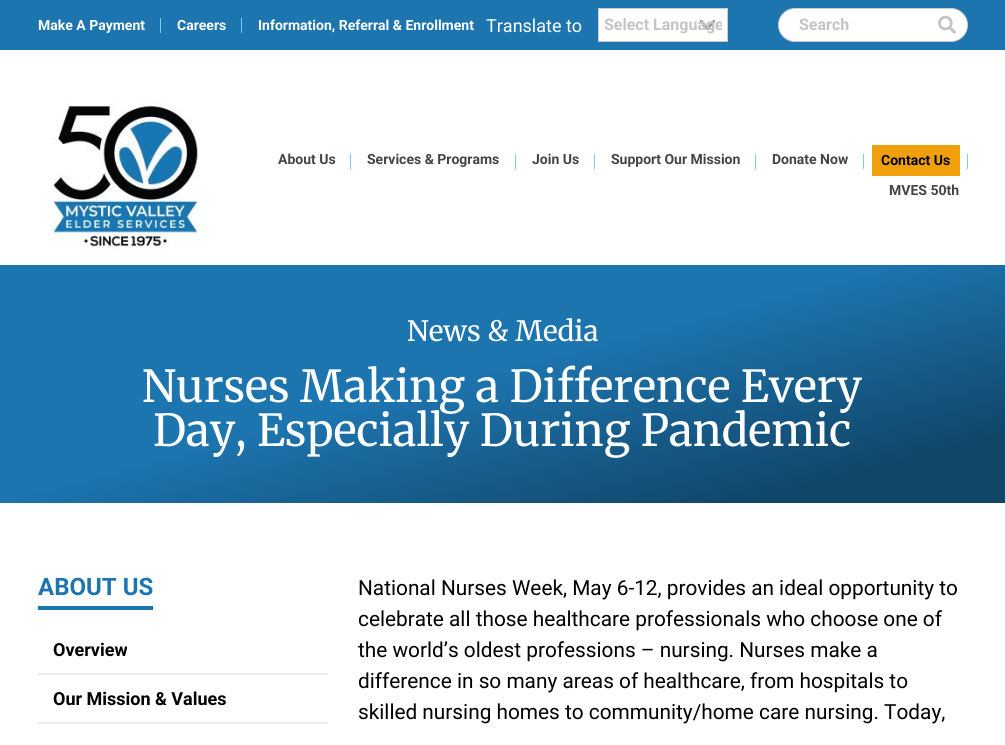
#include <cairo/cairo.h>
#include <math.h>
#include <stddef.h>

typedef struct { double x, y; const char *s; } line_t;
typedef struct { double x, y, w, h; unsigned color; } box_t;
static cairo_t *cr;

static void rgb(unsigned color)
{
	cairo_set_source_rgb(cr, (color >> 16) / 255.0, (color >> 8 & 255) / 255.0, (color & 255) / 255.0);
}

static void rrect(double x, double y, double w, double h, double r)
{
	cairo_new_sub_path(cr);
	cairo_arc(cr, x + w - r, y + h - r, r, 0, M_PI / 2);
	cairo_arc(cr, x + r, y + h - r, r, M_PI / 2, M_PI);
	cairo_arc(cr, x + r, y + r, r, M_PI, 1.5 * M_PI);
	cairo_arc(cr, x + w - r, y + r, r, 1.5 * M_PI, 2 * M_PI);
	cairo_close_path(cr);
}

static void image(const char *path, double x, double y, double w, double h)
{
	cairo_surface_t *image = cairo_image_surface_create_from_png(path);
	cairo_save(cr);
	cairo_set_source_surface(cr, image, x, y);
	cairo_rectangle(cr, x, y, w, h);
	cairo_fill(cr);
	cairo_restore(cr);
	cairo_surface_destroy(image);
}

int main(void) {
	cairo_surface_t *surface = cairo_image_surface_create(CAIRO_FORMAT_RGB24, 1005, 745);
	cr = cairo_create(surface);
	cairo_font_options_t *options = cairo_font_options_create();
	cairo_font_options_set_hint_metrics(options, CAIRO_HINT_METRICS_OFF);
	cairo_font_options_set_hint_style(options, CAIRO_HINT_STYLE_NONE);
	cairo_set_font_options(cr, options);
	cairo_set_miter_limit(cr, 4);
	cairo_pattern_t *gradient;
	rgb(0xffffff);
	cairo_paint(cr);
	{
		static const box_t items[] = {
			{0, 0, 1005, 50, 0x1d75b0},
			{160, 18, 1, 15, 0x7dc9ff},
			{241, 18, 1, 15, 0x7dc9ff},
			{599, 9, 128, 32, 0xffffff},
		};
		for (size_t i = 0; i < sizeof items / sizeof *items; i++) {
			rgb(items[i].color);
			cairo_rectangle(cr, items[i].x, items[i].y, items[i].w, items[i].h);
			cairo_fill(cr);
		}
	}
	image("img/1.png", 700, 20, 15, 10);
	cairo_rectangle(cr, 598.5, 8.5, 129, 33);
	rgb(0xcccccc);
	cairo_set_line_width(cr, 1);
	cairo_stroke(cr);
	rgb(0xffffff);
	rrect(778.5, 8.5, 189, 33, 16.5);
	cairo_fill_preserve(cr);
	rgb(0xcccccc);
	cairo_stroke(cr);
	image("img/2.png", 938, 15, 18, 19);
	image("img/3.png", 51, 102, 155, 147);
	{
		static const box_t items[] = {
			{350, 154, 1, 15, 0x7dc9ff},
			{515, 154, 1, 15, 0x7dc9ff},
			{594, 154, 1, 15, 0x7dc9ff},
			{755, 154, 1, 15, 0x7dc9ff},
			{863, 154, 1, 15, 0x7dc9ff},
			{872, 145, 88, 31, 0xefa00b},
			{967, 154, 1, 15, 0x7dc9ff},
		};
		for (size_t i = 0; i < sizeof items / sizeof *items; i++) {
			rgb(items[i].color);
			cairo_rectangle(cr, items[i].x, items[i].y, items[i].w, items[i].h);
			cairo_fill(cr);
		}
	}
	gradient = cairo_pattern_create_linear(564, 618, 441, 150);
	cairo_pattern_add_color_stop_rgba(gradient, 0.14, 0.067, 0.275, 0.412, 1);
	cairo_pattern_add_color_stop_rgba(gradient, 0.54, 0.114, 0.459, 0.69, 1);
	cairo_set_source(cr, gradient);
	cairo_pattern_destroy(gradient);
	cairo_rectangle(cr, 0, 265, 1005, 238);
	cairo_fill(cr);
	{
		static const box_t items[] = {
			{38, 606, 115, 4, 0x1d75b0},
			{38, 673, 290, 2, 0xebebeb},
			{38, 722, 290, 2, 0xebebeb},
		};
		for (size_t i = 0; i < sizeof items / sizeof *items; i++) {
			rgb(items[i].color);
			cairo_rectangle(cr, items[i].x, items[i].y, items[i].w, items[i].h);
			cairo_fill(cr);
		}
	}
	cairo_select_font_face(cr, "Roboto", CAIRO_FONT_SLANT_NORMAL, CAIRO_FONT_WEIGHT_BOLD);
	cairo_set_font_size(cr, 14);
	rgb(0xffffff);
	{
		static const line_t items[] = {
			{38, 30, "Make A Payment"},
			{177, 30, "Careers"},
			{258, 30, "Information, Referral & Enrollment"},
		};
		for (size_t i = 0; i < sizeof items / sizeof *items; i++) {
			cairo_move_to(cr, items[i].x, items[i].y);
			cairo_show_text(cr, items[i].s);
		}
	}
	cairo_select_font_face(cr, "Roboto", CAIRO_FONT_SLANT_NORMAL, CAIRO_FONT_WEIGHT_NORMAL);
	cairo_set_font_size(cr, 18);
	cairo_move_to(cr, 486, 32);
	cairo_show_text(cr, "Translate to");
	cairo_save(cr);
	cairo_rectangle(cr, 604, 13, 118, 24);
	cairo_clip(cr);
	cairo_select_font_face(cr, "Roboto", CAIRO_FONT_SLANT_NORMAL, CAIRO_FONT_WEIGHT_BOLD);
	cairo_set_font_size(cr, 16);
	rgb(0xc4c4c4);
	cairo_move_to(cr, 604, 30);
	cairo_show_text(cr, "Select Language");
	cairo_restore(cr);
	cairo_select_font_face(cr, "Roboto", CAIRO_FONT_SLANT_NORMAL, CAIRO_FONT_WEIGHT_BOLD);
	cairo_set_font_size(cr, 16);
	rgb(0xc4c4c4);
	cairo_move_to(cr, 799, 30);
	cairo_show_text(cr, "Search");
	cairo_set_font_size(cr, 14);
	rgb(0x444444);
	{
		static const line_t items[] = {
			{278, 164, "About Us"},
			{367, 164, "Services & Programs"},
			{532, 164, "Join Us"},
			{611, 164, "Support Our Mission"},
			{772, 164, "Donate Now"},
		};
		for (size_t i = 0; i < sizeof items / sizeof *items; i++) {
			cairo_move_to(cr, items[i].x, items[i].y);
			cairo_show_text(cr, items[i].s);
		}
	}
	rgb(0x000000);
	cairo_move_to(cr, 881, 165);
	cairo_show_text(cr, "Contact Us");
	rgb(0x444444);
	cairo_move_to(cr, 889, 195);
	cairo_show_text(cr, "MVES 50th");
	cairo_select_font_face(cr, "Merriweather", CAIRO_FONT_SLANT_NORMAL, CAIRO_FONT_WEIGHT_NORMAL);
	cairo_set_font_size(cr, 28);
	rgb(0xffffff);
	cairo_move_to(cr, 407, 341);
	cairo_show_text(cr, "News & Media");
	cairo_set_font_size(cr, 44);
	cairo_move_to(cr, 142, 402);
	cairo_show_text(cr, "Nurses Making a Difference Every");
	cairo_move_to(cr, 153, 446);
	cairo_show_text(cr, "Day, Especially During Pandemic");
	cairo_select_font_face(cr, "Roboto", CAIRO_FONT_SLANT_NORMAL, CAIRO_FONT_WEIGHT_BOLD);
	cairo_set_font_size(cr, 24);
	rgb(0x1d75b0);
	cairo_move_to(cr, 38, 595);
	cairo_show_text(cr, "ABOUT US");
	cairo_set_font_size(cr, 18);
	rgb(0x000000);
	cairo_move_to(cr, 53, 656);
	cairo_show_text(cr, "Overview");
	cairo_move_to(cr, 53, 705);
	cairo_show_text(cr, "Our Mission & Values");
	cairo_select_font_face(cr, "Roboto", CAIRO_FONT_SLANT_NORMAL, CAIRO_FONT_WEIGHT_NORMAL);
	cairo_set_font_size(cr, 20.8);
	{
		static const line_t items[] = {
			{358, 595, "National Nurses Week, May 6-12, provides an ideal opportunity to"},
			{358, 626, "celebrate all those healthcare professionals who choose one of"},
			{358, 657, "the world’s oldest professions – nursing. Nurses make a"},
			{358, 688, "difference in so many areas of healthcare, from hospitals to"},
			{358, 719, "skilled nursing homes to community/home care nursing. Today,"},
		};
		for (size_t i = 0; i < sizeof items / sizeof *items; i++) {
			cairo_move_to(cr, items[i].x, items[i].y);
			cairo_show_text(cr, items[i].s);
		}
	}
	cairo_surface_write_to_png(surface, "page.png");
	cairo_font_options_destroy(options);
	cairo_destroy(cr);
	cairo_surface_destroy(surface);
	return 0;
}
